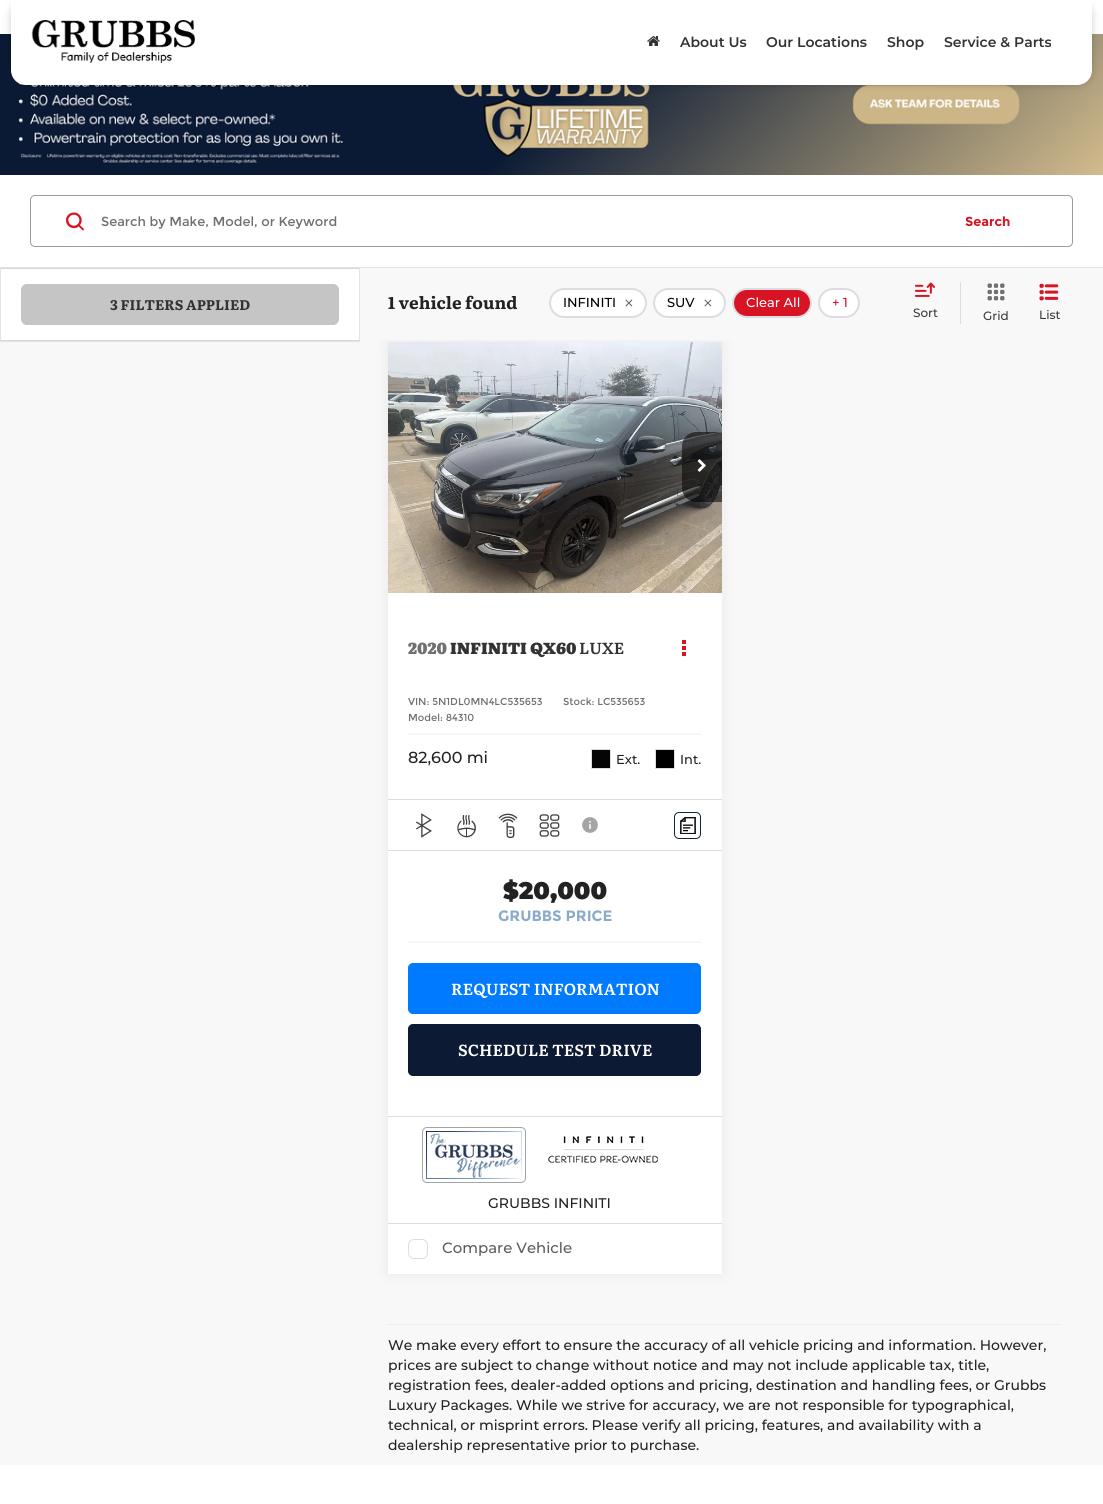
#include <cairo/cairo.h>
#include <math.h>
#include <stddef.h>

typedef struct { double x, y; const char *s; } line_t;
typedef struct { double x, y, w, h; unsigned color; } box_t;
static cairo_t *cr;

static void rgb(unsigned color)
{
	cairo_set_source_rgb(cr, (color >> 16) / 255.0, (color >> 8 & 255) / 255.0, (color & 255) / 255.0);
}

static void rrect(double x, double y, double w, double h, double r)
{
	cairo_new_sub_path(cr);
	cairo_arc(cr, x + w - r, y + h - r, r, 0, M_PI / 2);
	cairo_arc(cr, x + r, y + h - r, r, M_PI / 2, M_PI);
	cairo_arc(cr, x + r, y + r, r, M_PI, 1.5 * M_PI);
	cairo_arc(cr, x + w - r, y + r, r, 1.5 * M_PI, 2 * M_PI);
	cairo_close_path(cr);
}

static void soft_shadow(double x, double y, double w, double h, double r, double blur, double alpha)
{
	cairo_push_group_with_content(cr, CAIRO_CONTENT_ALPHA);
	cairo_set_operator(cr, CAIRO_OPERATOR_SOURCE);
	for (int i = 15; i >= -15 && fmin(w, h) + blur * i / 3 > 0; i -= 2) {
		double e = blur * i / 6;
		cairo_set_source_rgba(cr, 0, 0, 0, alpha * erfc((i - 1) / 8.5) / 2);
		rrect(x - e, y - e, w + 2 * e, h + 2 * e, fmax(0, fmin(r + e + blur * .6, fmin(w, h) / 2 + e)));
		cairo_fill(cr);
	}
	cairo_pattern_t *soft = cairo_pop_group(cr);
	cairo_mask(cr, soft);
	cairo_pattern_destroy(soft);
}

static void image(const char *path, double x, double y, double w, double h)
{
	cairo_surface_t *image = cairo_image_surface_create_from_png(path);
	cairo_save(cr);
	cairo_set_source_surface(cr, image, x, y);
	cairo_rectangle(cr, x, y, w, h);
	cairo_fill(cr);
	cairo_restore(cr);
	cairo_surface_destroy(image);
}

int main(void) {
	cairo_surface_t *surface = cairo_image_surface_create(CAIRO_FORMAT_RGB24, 1103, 1504);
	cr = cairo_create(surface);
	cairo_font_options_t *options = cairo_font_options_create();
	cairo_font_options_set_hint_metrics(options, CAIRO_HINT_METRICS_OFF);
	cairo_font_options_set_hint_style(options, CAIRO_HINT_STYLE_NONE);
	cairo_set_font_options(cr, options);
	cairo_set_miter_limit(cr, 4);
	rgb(0xffffff);
	cairo_paint(cr);
	image("img/3.png", 0, 34, 1103, 141);
	rgb(0x000000);
	soft_shadow(11, 0, 1081, 85, 15, 4, 0.2);
	rgb(0xffffff);
	cairo_new_path(cr);
	cairo_move_to(cr, 11, 0);
	cairo_line_to(cr, 1092, 0);
	cairo_line_to(cr, 1092, 70);
	cairo_curve_to(cr, 1092, 78.5, 1085.5, 85, 1077, 85);
	cairo_line_to(cr, 26, 85);
	cairo_curve_to(cr, 17.5, 85, 11, 78.5, 11, 70);
	cairo_close_path(cr);
	cairo_fill(cr);
	image("img/1.png", 31, 20, 164, 43);
	image("img/2.png", 647, 36, 13, 10);
	rgb(0xf8f8f8);
	cairo_rectangle(cr, 0, 340, 1103, 1125);
	cairo_fill(cr);
	rgb(0xe3e3e3);
	cairo_rectangle(cr, 0, 267, 1103, 1);
	cairo_fill(cr);
	rrect(30.5, 195.5, 1042, 51, 4.5);
	rgb(0x9b9b9b);
	cairo_set_line_width(cr, 1);
	cairo_stroke(cr);
	image("img/4.png", 66, 212, 18, 19);
	rgb(0x000000);
	soft_shadow(388, 342, 334, 932, 0, 7.5, 0.07);
	rgb(0xf8f8f8);
	cairo_rectangle(cr, 360, 268, 743, 72);
	cairo_fill(cr);
	rgb(0xffffff);
	rrect(550, 289, 96, 28, 14);
	cairo_fill_preserve(cr);
	rgb(0xdcdce2);
	cairo_set_line_width(cr, 2);
	cairo_stroke(cr);
	image("img/5.png", 625, 299, 8, 8);
	rgb(0xffffff);
	rrect(654, 289, 71, 28, 14);
	cairo_fill_preserve(cr);
	rgb(0xdcdce2);
	cairo_stroke(cr);
	image("img/5.png", 704, 299, 8, 8);
	rgb(0xd81324);
	rrect(733, 289, 78, 28, 14);
	cairo_fill_preserve(cr);
	rgb(0xdcdce2);
	cairo_stroke(cr);
	rgb(0xffffff);
	rrect(819, 289, 40, 28, 14);
	cairo_fill_preserve(cr);
	rgb(0xdcdce2);
	cairo_stroke(cr);
	image("img/6.png", 915, 282, 20, 15);
	cairo_rectangle(cr, 960, 282, 1, 42);
	cairo_fill(cr);
	image("img/7.png", 987, 283, 18, 18);
	image("img/8.png", 1039, 283, 20, 18);
	{
		static const box_t items[] = {
			{359, 268, 1, 74, 0xe3e3e3},
			{0, 341, 360, 1, 0xe3e3e3},
			{0, 268, 1, 74, 0xe3e3e3},
			{1, 268, 358, 1, 0xd8d8d8},
			{1, 340, 358, 1, 0xd8d8d8},
		};
		for (size_t i = 0; i < sizeof items / sizeof *items; i++) {
			rgb(items[i].color);
			cairo_rectangle(cr, items[i].x, items[i].y, items[i].w, items[i].h);
			cairo_fill(cr);
		}
	}
	rgb(0xc5c5c5);
	rrect(21.5, 284.5, 317, 40, 5.5);
	cairo_fill_preserve(cr);
	cairo_set_line_width(cr, 1);
	cairo_stroke(cr);
	rgb(0xffffff);
	cairo_rectangle(cr, 388, 593, 334, 681);
	cairo_fill(cr);
	image("img/9.png", 388, 342, 334, 251);
	cairo_set_source_rgba(cr, 0, 0, 0, 0.55);
	cairo_new_path(cr);
	cairo_move_to(cr, 696, 432);
	cairo_line_to(cr, 722, 432);
	cairo_line_to(cr, 722, 502);
	cairo_line_to(cr, 696, 502);
	cairo_curve_to(cr, 688.5, 502, 682, 495.5, 682, 488);
	cairo_line_to(cr, 682, 446);
	cairo_curve_to(cr, 682, 438.5, 688.5, 432, 696, 432);
	cairo_close_path(cr);
	cairo_fill(cr);
	image("img/10.png", 697, 459, 9, 13);
	{
		static const box_t items[] = {
			{682, 640, 4, 4, 0xd81324},
			{682, 646, 4, 4, 0xd81324},
			{682, 652, 4, 4, 0xd81324},
			{408, 733, 293, 2, 0xf4f5f7},
		};
		for (size_t i = 0; i < sizeof items / sizeof *items; i++) {
			rgb(items[i].color);
			cairo_rectangle(cr, items[i].x, items[i].y, items[i].w, items[i].h);
			cairo_fill(cr);
		}
	}
	rgb(0x050505);
	cairo_rectangle(cr, 591.5, 749.5, 19, 19);
	cairo_fill_preserve(cr);
	rgb(0xdcdce2);
	cairo_stroke(cr);
	rgb(0x000000);
	cairo_rectangle(cr, 655.5, 749.5, 19, 19);
	cairo_fill_preserve(cr);
	rgb(0xdcdce2);
	cairo_stroke(cr);
	cairo_rectangle(cr, 388, 799, 334, 1);
	cairo_fill(cr);
	image("img/11.png", 416, 813, 16, 25);
	image("img/12.png", 457, 815, 19, 23);
	image("img/13.png", 498, 813, 20, 25);
	image("img/14.png", 539, 814, 21, 23);
	image("img/15.png", 582, 817, 16, 16);
	rrect(674.5, 812.5, 26, 26, 4.5);
	rgb(0x122532);
	cairo_stroke(cr);
	image("img/16.png", 680, 817, 16, 17);
	rgb(0xdcdce2);
	cairo_rectangle(cr, 388, 850, 334, 1);
	cairo_fill(cr);
	rgb(0xf4f5f7);
	cairo_rectangle(cr, 408, 941, 293, 2);
	cairo_fill(cr);
	rgb(0x007bff);
	rrect(408.5, 963.5, 292, 50, 4.5);
	cairo_fill_preserve(cr);
	cairo_stroke(cr);
	rgb(0x0c1a34);
	rrect(408.5, 1024.5, 292, 51, 4.5);
	cairo_fill_preserve(cr);
	cairo_stroke(cr);
	rgb(0xdcdce2);
	cairo_rectangle(cr, 388, 1116, 334, 1);
	cairo_fill(cr);
	rrect(422.5, 1127.5, 103, 55, 4.5);
	rgb(0xa5a5a5);
	cairo_stroke(cr);
	image("img/17.png", 426, 1131, 96, 48);
	image("img/18.png", 548, 1136, 110, 27);
	rgb(0xdcdce2);
	cairo_rectangle(cr, 388, 1223, 334, 1);
	cairo_fill(cr);
	rrect(408.5, 1239.5, 19, 19, 5.5);
	cairo_stroke(cr);
	rgb(0xededed);
	cairo_rectangle(cr, 388, 1324, 672, 1);
	cairo_fill(cr);
	cairo_select_font_face(cr, "Montserrat SemiBold", CAIRO_FONT_SLANT_NORMAL, CAIRO_FONT_WEIGHT_NORMAL);
	cairo_set_font_size(cr, 14);
	rgb(0x333333);
	{
		static const line_t items[] = {
			{680, 47, "About Us"},
			{766, 47, "Our Locations"},
			{887, 47, "Shop"},
			{944, 47, "Service & Parts"},
		};
		for (size_t i = 0; i < sizeof items / sizeof *items; i++) {
			cairo_move_to(cr, items[i].x, items[i].y);
			cairo_show_text(cr, items[i].s);
		}
	}
	cairo_select_font_face(cr, "Montserrat", CAIRO_FONT_SLANT_NORMAL, CAIRO_FONT_WEIGHT_NORMAL);
	cairo_set_font_size(cr, 13);
	rgb(0x707070);
	cairo_move_to(cr, 101, 226);
	cairo_show_text(cr, "Search by Make, Model, or Keyword");
	cairo_select_font_face(cr, "Montserrat", CAIRO_FONT_SLANT_NORMAL, CAIRO_FONT_WEIGHT_BOLD);
	rgb(0xd81324);
	cairo_move_to(cr, 965, 226);
	cairo_show_text(cr, "Search");
	cairo_select_font_face(cr, "Literata", CAIRO_FONT_SLANT_NORMAL, CAIRO_FONT_WEIGHT_BOLD);
	cairo_set_font_size(cr, 17);
	rgb(0x222222);
	cairo_move_to(cr, 388, 309);
	cairo_show_text(cr, "1 vehicle found");
	cairo_select_font_face(cr, "Montserrat Medium", CAIRO_FONT_SLANT_NORMAL, CAIRO_FONT_WEIGHT_NORMAL);
	cairo_set_font_size(cr, 13);
	rgb(0x000000);
	cairo_move_to(cr, 563, 307);
	cairo_show_text(cr, "INFINITI");
	cairo_move_to(cr, 667, 307);
	cairo_show_text(cr, "SUV");
	rgb(0xffffff);
	cairo_move_to(cr, 746, 307);
	cairo_show_text(cr, "Clear All");
	rgb(0xd81324);
	cairo_move_to(cr, 832, 307);
	cairo_show_text(cr, "+ 1");
	cairo_set_font_size(cr, 12);
	rgb(0x3b3b3b);
	{
		static const line_t items[] = {
			{913, 317, "Sort"},
			{983, 320, "Grid"},
			{1039, 319, "List"},
		};
		for (size_t i = 0; i < sizeof items / sizeof *items; i++) {
			cairo_move_to(cr, items[i].x, items[i].y);
			cairo_show_text(cr, items[i].s);
		}
	}
	cairo_select_font_face(cr, "Literata", CAIRO_FONT_SLANT_NORMAL, CAIRO_FONT_WEIGHT_BOLD);
	cairo_set_font_size(cr, 14);
	rgb(0x333333);
	cairo_move_to(cr, 110, 310);
	cairo_show_text(cr, "3 FILTERS APPLIED");
	cairo_select_font_face(cr, "Literata Black", CAIRO_FONT_SLANT_NORMAL, CAIRO_FONT_WEIGHT_NORMAL);
	cairo_set_font_size(cr, 16);
	rgb(0x707070);
	cairo_move_to(cr, 408, 654);
	cairo_show_text(cr, "2020");
	rgb(0x333333);
	cairo_move_to(cr, 450, 654);
	cairo_show_text(cr, "INFINITI QX60");
	cairo_select_font_face(cr, "Literata SemiBold", CAIRO_FONT_SLANT_NORMAL, CAIRO_FONT_WEIGHT_NORMAL);
	cairo_move_to(cr, 579, 654);
	cairo_show_text(cr, "LUXE");
	cairo_select_font_face(cr, "Montserrat", CAIRO_FONT_SLANT_NORMAL, CAIRO_FONT_WEIGHT_NORMAL);
	cairo_set_font_size(cr, 10);
	rgb(0x707070);
	{
		static const line_t items[] = {
			{408, 705, "VIN: 5N1DL0MN4LC535653"},
			{563, 705, "Stock: LC535653"},
			{408, 721, "Model: 84310"},
		};
		for (size_t i = 0; i < sizeof items / sizeof *items; i++) {
			cairo_move_to(cr, items[i].x, items[i].y);
			cairo_show_text(cr, items[i].s);
		}
	}
	cairo_select_font_face(cr, "Montserrat Medium", CAIRO_FONT_SLANT_NORMAL, CAIRO_FONT_WEIGHT_NORMAL);
	cairo_set_font_size(cr, 16);
	rgb(0x222222);
	cairo_move_to(cr, 408, 763);
	cairo_show_text(cr, "82,600 mi");
	cairo_set_font_size(cr, 13);
	cairo_move_to(cr, 616, 764);
	cairo_show_text(cr, "Ext.");
	cairo_move_to(cr, 680, 764);
	cairo_show_text(cr, "Int.");
	cairo_select_font_face(cr, "Montserrat Black", CAIRO_FONT_SLANT_NORMAL, CAIRO_FONT_WEIGHT_NORMAL);
	cairo_set_font_size(cr, 24);
	cairo_move_to(cr, 503, 899);
	cairo_show_text(cr, "$20,000");
	cairo_select_font_face(cr, "Montserrat", CAIRO_FONT_SLANT_NORMAL, CAIRO_FONT_WEIGHT_BOLD);
	cairo_set_font_size(cr, 15);
	rgb(0x8aabca);
	cairo_move_to(cr, 498, 921);
	cairo_show_text(cr, "GRUBBS PRICE");
	cairo_select_font_face(cr, "Literata SemiBold", CAIRO_FONT_SLANT_NORMAL, CAIRO_FONT_WEIGHT_NORMAL);
	cairo_set_font_size(cr, 16);
	rgb(0xffffff);
	cairo_move_to(cr, 451, 995);
	cairo_show_text(cr, "REQUEST INFORMATION");
	cairo_move_to(cr, 458, 1056);
	cairo_show_text(cr, "SCHEDULE TEST DRIVE");
	cairo_select_font_face(cr, "Montserrat Medium", CAIRO_FONT_SLANT_NORMAL, CAIRO_FONT_WEIGHT_NORMAL);
	cairo_set_font_size(cr, 14);
	rgb(0x222222);
	cairo_move_to(cr, 488, 1208);
	cairo_show_text(cr, "GRUBBS INFINITI");
	cairo_set_font_size(cr, 14.9);
	rgb(0x5c5c5c);
	cairo_move_to(cr, 442, 1253);
	cairo_show_text(cr, "Compare Vehicle");
	cairo_set_font_size(cr, 14);
	rgb(0x222222);
	{
		static const line_t items[] = {
			{388, 1350, "We make every effort to ensure the accuracy of all vehicle pricing and information. However,"},
			{388, 1370, "prices are subject to change without notice and may not include applicable tax, title,"},
			{388, 1390, "registration fees, dealer-added options and pricing, destination and handling fees, or Grubbs"},
			{388, 1410, "Luxury Packages. While we strive for accuracy, we are not responsible for typographical,"},
			{388, 1430, "technical, or misprint errors. Please verify all pricing, features, and availability with a"},
			{388, 1450, "dealership representative prior to purchase."},
		};
		for (size_t i = 0; i < sizeof items / sizeof *items; i++) {
			cairo_move_to(cr, items[i].x, items[i].y);
			cairo_show_text(cr, items[i].s);
		}
	}
	cairo_surface_write_to_png(surface, "page.png");
	cairo_font_options_destroy(options);
	cairo_destroy(cr);
	cairo_surface_destroy(surface);
	return 0;
}
